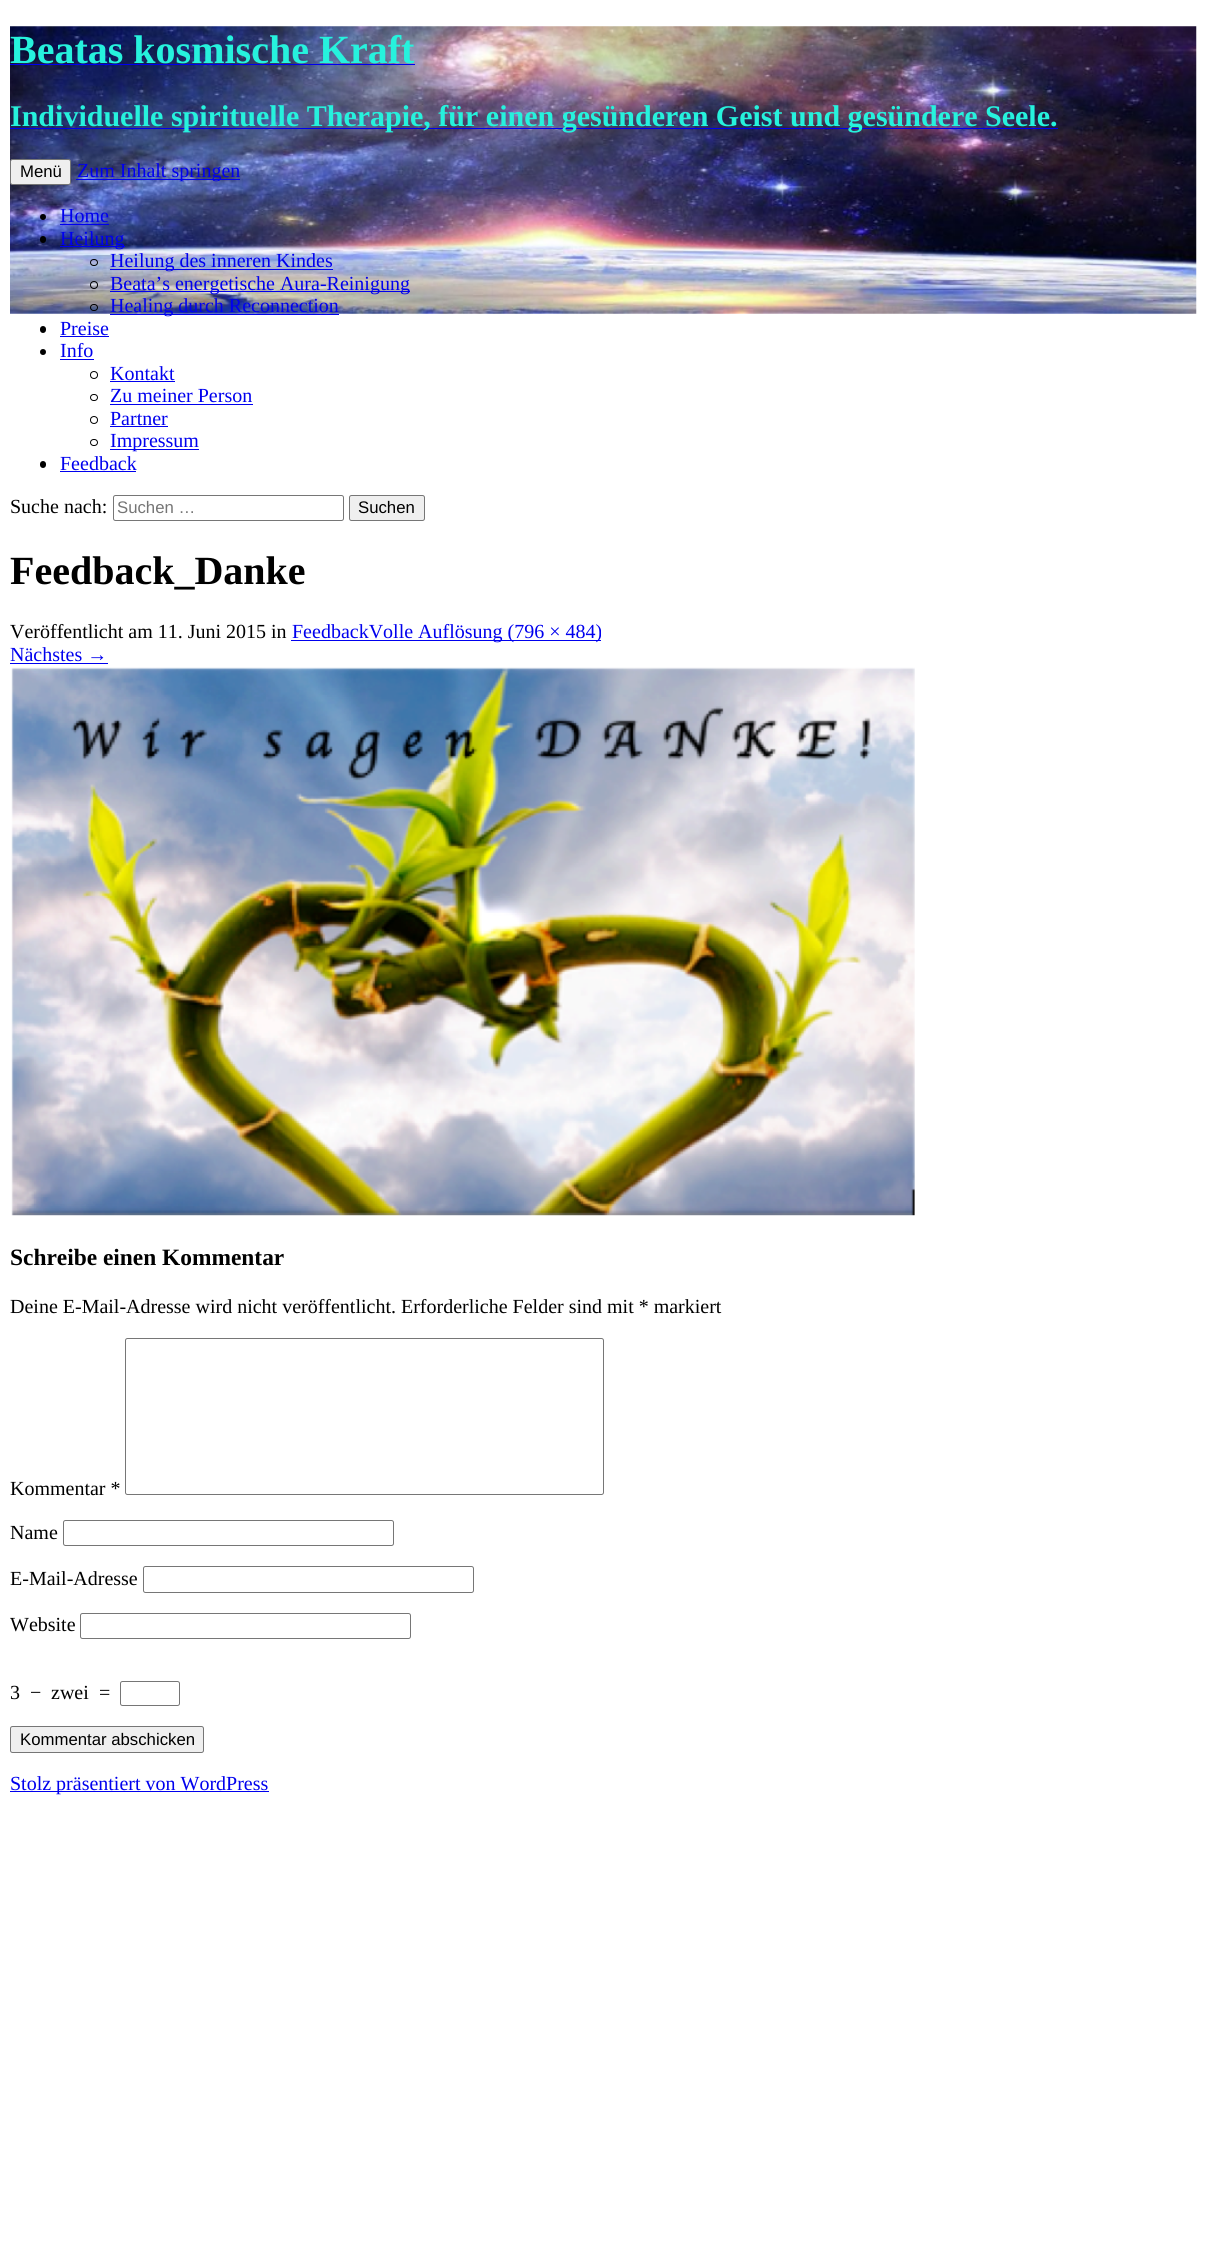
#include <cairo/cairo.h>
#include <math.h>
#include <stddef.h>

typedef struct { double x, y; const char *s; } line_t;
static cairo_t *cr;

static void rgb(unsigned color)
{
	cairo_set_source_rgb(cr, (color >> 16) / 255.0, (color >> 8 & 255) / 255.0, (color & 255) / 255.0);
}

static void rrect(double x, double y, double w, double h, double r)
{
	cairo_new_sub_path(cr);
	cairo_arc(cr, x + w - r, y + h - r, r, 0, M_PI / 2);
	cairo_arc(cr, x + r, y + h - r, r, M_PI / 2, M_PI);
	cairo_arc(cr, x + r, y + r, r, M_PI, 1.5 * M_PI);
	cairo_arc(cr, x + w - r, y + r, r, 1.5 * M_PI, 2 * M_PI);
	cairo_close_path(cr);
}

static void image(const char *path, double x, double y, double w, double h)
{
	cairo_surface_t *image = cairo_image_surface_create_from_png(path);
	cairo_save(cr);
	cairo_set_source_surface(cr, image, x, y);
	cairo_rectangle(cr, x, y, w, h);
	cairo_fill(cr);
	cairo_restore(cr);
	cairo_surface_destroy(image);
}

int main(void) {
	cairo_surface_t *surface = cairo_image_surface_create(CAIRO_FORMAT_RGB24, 1206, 2242);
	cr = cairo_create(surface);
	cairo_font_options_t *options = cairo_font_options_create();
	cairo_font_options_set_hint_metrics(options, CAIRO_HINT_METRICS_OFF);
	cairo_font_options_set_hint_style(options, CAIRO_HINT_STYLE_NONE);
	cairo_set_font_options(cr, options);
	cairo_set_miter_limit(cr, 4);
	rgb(0xffffff);
	cairo_paint(cr);
	image("img/1.png", 10, 26, 1187, 288);
	rgb(0x0000ee);
	cairo_rectangle(cr, 10, 64, 405, 1);
	cairo_fill(cr);
	cairo_rectangle(cr, 10, 128, 1048, 1);
	cairo_fill(cr);
	rgb(0xefefef);
	rrect(10.5, 159.5, 60, 25, 2);
	cairo_fill_preserve(cr);
	rgb(0x767676);
	cairo_set_line_width(cr, 1);
	cairo_stroke(cr);
	rgb(0x0000ee);
	cairo_rectangle(cr, 76, 179, 164, 1);
	cairo_fill(cr);
	rgb(0x000000);
	cairo_arc(cr, 43, 217, 3, 0, 2 * M_PI);
	cairo_fill(cr);
	rgb(0x0000ee);
	cairo_rectangle(cr, 60, 224, 49, 1);
	cairo_fill(cr);
	rgb(0x000000);
	rrect(40, 236, 6, 7, 3);
	cairo_fill(cr);
	rgb(0x0000ee);
	cairo_rectangle(cr, 60, 246, 65, 1);
	cairo_fill(cr);
	rrect(90.5, 259.5, 7, 6, 3);
	rgb(0x000000);
	cairo_stroke(cr);
	rgb(0x0000ee);
	cairo_rectangle(cr, 110, 269, 223, 1);
	cairo_fill(cr);
	cairo_arc(cr, 94, 285, 3.5, 0, 2 * M_PI);
	rgb(0x000000);
	cairo_stroke(cr);
	rgb(0x0000ee);
	cairo_rectangle(cr, 110, 291, 300, 1);
	cairo_fill(cr);
	rrect(90.5, 304.5, 7, 6, 3);
	rgb(0x000000);
	cairo_stroke(cr);
	rgb(0x0000ee);
	cairo_rectangle(cr, 110, 314, 229, 1);
	cairo_fill(cr);
	rgb(0x000000);
	rrect(40, 326, 6, 7, 3);
	cairo_fill(cr);
	rgb(0x0000ee);
	cairo_rectangle(cr, 60, 336, 49, 1);
	cairo_fill(cr);
	rgb(0x000000);
	cairo_arc(cr, 43, 352, 3, 0, 2 * M_PI);
	cairo_fill(cr);
	rgb(0x0000ee);
	cairo_rectangle(cr, 60, 359, 34, 1);
	cairo_fill(cr);
	cairo_arc(cr, 94, 375, 3.5, 0, 2 * M_PI);
	rgb(0x000000);
	cairo_stroke(cr);
	rgb(0x0000ee);
	cairo_rectangle(cr, 110, 381, 65, 1);
	cairo_fill(cr);
	rrect(90.5, 394.5, 7, 6, 3);
	rgb(0x000000);
	cairo_stroke(cr);
	rgb(0x0000ee);
	cairo_rectangle(cr, 110, 404, 143, 1);
	cairo_fill(cr);
	cairo_arc(cr, 94, 420, 3.5, 0, 2 * M_PI);
	rgb(0x000000);
	cairo_stroke(cr);
	rgb(0x0000ee);
	cairo_rectangle(cr, 110, 426, 58, 1);
	cairo_fill(cr);
	rrect(90.5, 439.5, 7, 6, 3);
	rgb(0x000000);
	cairo_stroke(cr);
	rgb(0x0000ee);
	cairo_rectangle(cr, 110, 449, 89, 1);
	cairo_fill(cr);
	rgb(0x000000);
	rrect(40, 461, 6, 7, 3);
	cairo_fill(cr);
	rgb(0x0000ee);
	cairo_rectangle(cr, 60, 471, 76, 1);
	cairo_fill(cr);
	rrect(113.5, 495.5, 230, 25, 2);
	rgb(0x767676);
	cairo_stroke(cr);
	rgb(0xefefef);
	rrect(349.5, 495.5, 75, 25, 2);
	cairo_fill_preserve(cr);
	rgb(0x767676);
	cairo_stroke(cr);
	rgb(0x0000ee);
	cairo_rectangle(cr, 291, 640, 310, 1);
	cairo_fill(cr);
	cairo_rectangle(cr, 10, 663, 98, 1);
	cairo_fill(cr);
	image("img/2.png", 11, 667, 904, 549);
	rrect(125.5, 1338.5, 478, 156, 2);
	rgb(0x767676);
	cairo_stroke(cr);
	rrect(63.5, 1520.5, 330, 25, 2);
	cairo_stroke(cr);
	rrect(143.5, 1566.5, 330, 26, 2);
	cairo_stroke(cr);
	rrect(80.5, 1613.5, 330, 25, 2);
	cairo_stroke(cr);
	rrect(120.5, 1681.5, 59, 24, 2);
	cairo_stroke(cr);
	rgb(0xefefef);
	rrect(10.5, 1726.5, 193, 26, 2);
	cairo_fill_preserve(cr);
	rgb(0x767676);
	cairo_stroke(cr);
	rgb(0x0000ee);
	cairo_rectangle(cr, 10, 1791, 259, 1);
	cairo_fill(cr);
	cairo_select_font_face(cr, "Liberation Serif", CAIRO_FONT_SLANT_NORMAL, CAIRO_FONT_WEIGHT_BOLD);
	cairo_set_font_size(cr, 40);
	rgb(0x26f2dd);
	cairo_move_to(cr, 10, 63);
	cairo_show_text(cr, "Beatas kosmische Kraft");
	cairo_set_font_size(cr, 30);
	cairo_move_to(cr, 10, 126);
	cairo_show_text(cr, "Individuelle spirituelle Therapie, für einen gesünderen Geist und gesündere Seele.");
	cairo_select_font_face(cr, "Liberation Sans", CAIRO_FONT_SLANT_NORMAL, CAIRO_FONT_WEIGHT_NORMAL);
	cairo_set_font_size(cr, 16.75);
	rgb(0x000000);
	cairo_move_to(cr, 20, 177);
	cairo_show_text(cr, "Menü");
	cairo_select_font_face(cr, "Liberation Serif", CAIRO_FONT_SLANT_NORMAL, CAIRO_FONT_WEIGHT_NORMAL);
	cairo_set_font_size(cr, 20);
	rgb(0x0000ee);
	{
		static const line_t items[] = {
			{77, 177, "Zum Inhalt springen"},
			{60, 222, "Home"},
			{60, 245, "Heilung"},
			{110, 267, "Heilung des inneren Kindes"},
			{110, 290, "Beata’s energetische Aura-Reinigung"},
			{110, 312, "Healing durch Reconnection"},
			{60, 335, "Preise"},
			{60, 357, "Info"},
			{110, 380, "Kontakt"},
			{110, 402, "Zu meiner Person"},
			{110, 425, "Partner"},
			{110, 447, "Impressum"},
			{60, 470, "Feedback"},
		};
		for (size_t i = 0; i < sizeof items / sizeof *items; i++) {
			cairo_move_to(cr, items[i].x, items[i].y);
			cairo_show_text(cr, items[i].s);
		}
	}
	rgb(0x000000);
	cairo_move_to(cr, 10, 513);
	cairo_show_text(cr, "Suche nach:");
	cairo_select_font_face(cr, "Liberation Sans", CAIRO_FONT_SLANT_NORMAL, CAIRO_FONT_WEIGHT_NORMAL);
	cairo_set_font_size(cr, 16.75);
	rgb(0x757575);
	cairo_move_to(cr, 117, 513);
	cairo_show_text(cr, "Suchen …");
	rgb(0x000000);
	cairo_move_to(cr, 358, 513);
	cairo_show_text(cr, "Suchen");
	cairo_select_font_face(cr, "Liberation Serif", CAIRO_FONT_SLANT_NORMAL, CAIRO_FONT_WEIGHT_BOLD);
	cairo_set_font_size(cr, 40);
	cairo_move_to(cr, 10, 584);
	cairo_show_text(cr, "Feedback_Danke");
	cairo_select_font_face(cr, "Liberation Serif", CAIRO_FONT_SLANT_NORMAL, CAIRO_FONT_WEIGHT_NORMAL);
	cairo_set_font_size(cr, 20);
	cairo_move_to(cr, 10, 638);
	cairo_show_text(cr, "Veröffentlicht am 11. Juni 2015 in");
	rgb(0x0000ee);
	cairo_move_to(cr, 292, 638);
	cairo_show_text(cr, "FeedbackVolle Auflösung (796 × 484)");
	cairo_move_to(cr, 10, 661);
	cairo_show_text(cr, "Nächstes →");
	cairo_select_font_face(cr, "Liberation Serif", CAIRO_FONT_SLANT_NORMAL, CAIRO_FONT_WEIGHT_BOLD);
	cairo_set_font_size(cr, 23.4);
	rgb(0x000000);
	cairo_move_to(cr, 10, 1265);
	cairo_show_text(cr, "Schreibe einen Kommentar");
	cairo_select_font_face(cr, "Liberation Serif", CAIRO_FONT_SLANT_NORMAL, CAIRO_FONT_WEIGHT_NORMAL);
	cairo_set_font_size(cr, 20);
	{
		static const line_t items[] = {
			{10, 1313, "Deine E-Mail-Adresse wird nicht veröffentlicht. Erforderliche Felder sind mit * markiert"},
			{10, 1495, "Kommentar *"},
			{10, 1539, "Name"},
			{10, 1585, "E-Mail-Adresse"},
			{10, 1631, "Website"},
			{10, 1699, "3"},
			{30, 1699, "−"},
			{51, 1699, "zwei"},
			{99, 1699, "="},
		};
		for (size_t i = 0; i < sizeof items / sizeof *items; i++) {
			cairo_move_to(cr, items[i].x, items[i].y);
			cairo_show_text(cr, items[i].s);
		}
	}
	cairo_select_font_face(cr, "Liberation Sans", CAIRO_FONT_SLANT_NORMAL, CAIRO_FONT_WEIGHT_NORMAL);
	cairo_set_font_size(cr, 16.75);
	cairo_move_to(cr, 20, 1745);
	cairo_show_text(cr, "Kommentar abschicken");
	cairo_select_font_face(cr, "Liberation Serif", CAIRO_FONT_SLANT_NORMAL, CAIRO_FONT_WEIGHT_NORMAL);
	cairo_set_font_size(cr, 20);
	rgb(0x0000ee);
	cairo_move_to(cr, 10, 1790);
	cairo_show_text(cr, "Stolz präsentiert von WordPress");
	cairo_surface_write_to_png(surface, "page.png");
	cairo_font_options_destroy(options);
	cairo_destroy(cr);
	cairo_surface_destroy(surface);
	return 0;
}
